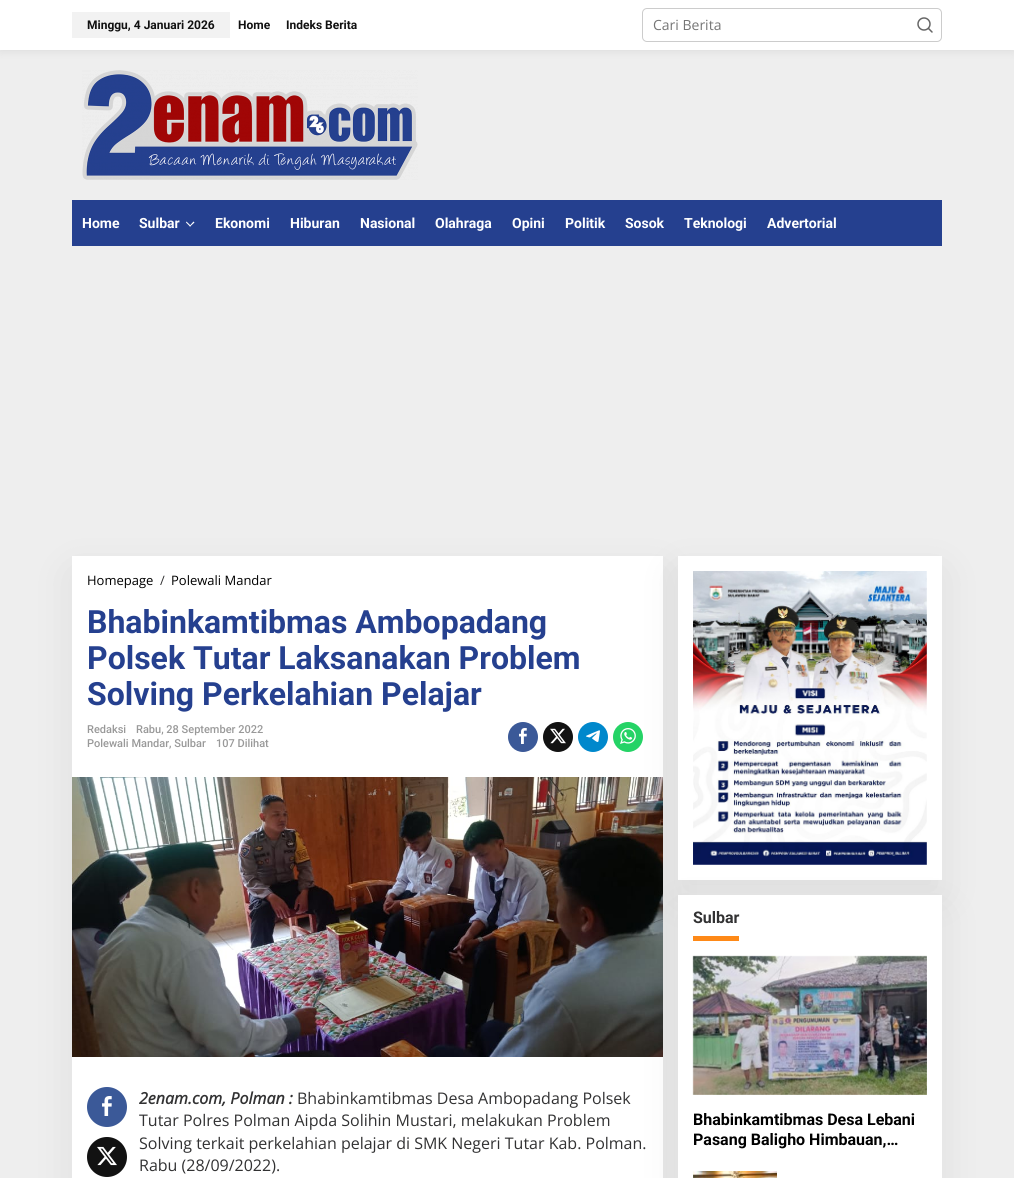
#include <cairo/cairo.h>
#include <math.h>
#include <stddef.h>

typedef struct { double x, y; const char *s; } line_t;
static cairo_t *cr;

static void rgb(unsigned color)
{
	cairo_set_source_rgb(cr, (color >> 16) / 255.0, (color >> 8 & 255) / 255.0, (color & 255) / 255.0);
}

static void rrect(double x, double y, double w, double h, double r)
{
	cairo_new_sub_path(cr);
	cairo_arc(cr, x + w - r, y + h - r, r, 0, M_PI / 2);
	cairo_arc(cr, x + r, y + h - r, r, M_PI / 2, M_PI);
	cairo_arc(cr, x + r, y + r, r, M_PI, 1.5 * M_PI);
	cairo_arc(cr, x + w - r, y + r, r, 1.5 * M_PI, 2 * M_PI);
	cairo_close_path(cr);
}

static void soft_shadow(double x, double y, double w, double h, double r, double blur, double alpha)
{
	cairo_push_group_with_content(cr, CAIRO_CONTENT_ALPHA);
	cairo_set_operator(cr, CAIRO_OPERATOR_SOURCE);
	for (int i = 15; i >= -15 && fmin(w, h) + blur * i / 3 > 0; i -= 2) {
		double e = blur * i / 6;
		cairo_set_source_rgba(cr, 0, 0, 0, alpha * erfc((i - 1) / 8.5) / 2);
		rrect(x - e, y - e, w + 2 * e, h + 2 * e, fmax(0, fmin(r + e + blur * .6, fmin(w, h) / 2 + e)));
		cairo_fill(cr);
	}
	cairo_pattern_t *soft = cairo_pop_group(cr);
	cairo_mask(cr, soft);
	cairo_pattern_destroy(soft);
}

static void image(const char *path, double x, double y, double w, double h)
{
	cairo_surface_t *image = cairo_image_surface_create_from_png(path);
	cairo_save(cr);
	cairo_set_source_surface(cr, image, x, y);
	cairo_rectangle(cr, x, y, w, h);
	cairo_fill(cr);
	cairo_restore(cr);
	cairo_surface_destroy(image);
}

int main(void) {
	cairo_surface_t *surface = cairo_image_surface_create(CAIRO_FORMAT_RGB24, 1014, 1178);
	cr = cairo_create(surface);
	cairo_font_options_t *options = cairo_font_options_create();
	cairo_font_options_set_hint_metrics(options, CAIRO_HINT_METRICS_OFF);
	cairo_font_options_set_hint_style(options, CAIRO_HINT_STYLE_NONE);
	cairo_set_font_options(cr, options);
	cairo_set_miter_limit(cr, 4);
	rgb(0xeeeeee);
	cairo_paint(cr);
	rgb(0x000000);
	soft_shadow(0, 0, 1014, 50, 0, 5, 0.1);
	rgb(0xffffff);
	cairo_rectangle(cr, 0, 0, 1014, 50);
	cairo_fill(cr);
	rgb(0xf2f2f2);
	cairo_rectangle(cr, 72, 12, 158, 26);
	cairo_fill(cr);
	rrect(642.5, 8.5, 299, 33, 4.5);
	rgb(0xcccccc);
	cairo_set_line_width(cr, 1);
	cairo_stroke(cr);
	cairo_arc(cr, 924, 24, 6, 0, 2 * M_PI);
	rgb(0x666666);
	cairo_set_line_width(cr, 1.5);
	cairo_stroke(cr);
	cairo_new_path(cr);
	cairo_move_to(cr, 932, 32);
	cairo_line_to(cr, 928.5, 28.5);
	cairo_set_line_cap(cr, CAIRO_LINE_CAP_ROUND);
	cairo_set_line_join(cr, CAIRO_LINE_JOIN_ROUND);
	cairo_stroke(cr);
	image("img/1.png", 82, 70, 336, 110);
	rgb(0x25408f);
	cairo_rectangle(cr, 72, 200, 870, 46);
	cairo_fill(cr);
	rgb(0xffffff);
	cairo_new_path(cr);
	cairo_move_to(cr, 193.5, 221.5);
	cairo_line_to(cr, 194.5, 222.5);
	cairo_line_to(cr, 190, 226.5);
	cairo_line_to(cr, 189.5, 226);
	cairo_close_path(cr);
	cairo_fill(cr);
	cairo_new_path(cr);
	cairo_move_to(cr, 186.5, 221.5);
	cairo_line_to(cr, 191, 226);
	cairo_line_to(cr, 190, 226.5);
	cairo_line_to(cr, 186, 222.5);
	cairo_close_path(cr);
	cairo_fill(cr);
	rgb(0x000000);
	soft_shadow(72, 572, 591, 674, 0, 22.5, 0.07);
	rgb(0xffffff);
	cairo_rectangle(cr, 72, 556, 591, 622);
	cairo_fill(cr);
	rgb(0x3b5998);
	cairo_arc(cr, 523, 737, 15, 0, 2 * M_PI);
	cairo_fill(cr);
	image("img/2.png", 519, 728, 8, 16);
	rgb(0x121212);
	cairo_arc(cr, 558, 737, 15, 0, 2 * M_PI);
	cairo_fill(cr);
	image("img/3.png", 550, 728, 16, 16);
	rgb(0x0088cc);
	cairo_arc(cr, 593, 737, 15, 0, 2 * M_PI);
	cairo_fill(cr);
	image("img/4.png", 586, 730, 14, 12);
	rgb(0x25d366);
	cairo_arc(cr, 628, 737, 15, 0, 2 * M_PI);
	cairo_fill(cr);
	image("img/5.png", 620, 728, 16, 16);
	image("img/6.png", 72, 777, 591, 280);
	rgb(0x3b5998);
	cairo_arc(cr, 107, 1107, 20, 0, 2 * M_PI);
	cairo_fill(cr);
	image("img/7.png", 102, 1096, 10, 20);
	rgb(0x121212);
	cairo_arc(cr, 107, 1157, 20, 0, 2 * M_PI);
	cairo_fill(cr);
	image("img/8.png", 97, 1146, 20, 20);
	rgb(0x000000);
	soft_shadow(678, 572, 264, 324, 0, 22.5, 0.07);
	rgb(0xffffff);
	cairo_rectangle(cr, 678, 556, 264, 324);
	cairo_fill(cr);
	rgb(0x000000);
	soft_shadow(678, 911, 264, 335, 0, 22.5, 0.07);
	image("img/9.png", 693, 571, 234, 294);
	rgb(0xffffff);
	cairo_rectangle(cr, 678, 895, 264, 283);
	cairo_fill(cr);
	rgb(0xfe8917);
	cairo_rectangle(cr, 693, 936, 46, 5);
	cairo_fill(cr);
	image("img/10.png", 692, 955, 235, 140);
	image("img/11.png", 693, 1171, 84, 7);
	cairo_select_font_face(cr, "Roboto", CAIRO_FONT_SLANT_NORMAL, CAIRO_FONT_WEIGHT_BOLD);
	cairo_set_font_size(cr, 12);
	rgb(0x111111);
	{
		static const line_t items[] = {
			{87, 29, "Minggu, 4 Januari 2026"},
			{238, 29, "Home"},
			{286, 29, "Indeks Berita"},
		};
		for (size_t i = 0; i < sizeof items / sizeof *items; i++) {
			cairo_move_to(cr, items[i].x, items[i].y);
			cairo_show_text(cr, items[i].s);
		}
	}
	cairo_select_font_face(cr, "Open Sans", CAIRO_FONT_SLANT_NORMAL, CAIRO_FONT_WEIGHT_NORMAL);
	cairo_set_font_size(cr, 14);
	rgb(0x757575);
	cairo_move_to(cr, 653, 30);
	cairo_show_text(cr, "Cari Berita");
	cairo_select_font_face(cr, "Roboto", CAIRO_FONT_SLANT_NORMAL, CAIRO_FONT_WEIGHT_BOLD);
	rgb(0xffffff);
	{
		static const line_t items[] = {
			{82, 228, "Home"},
			{139, 228, "Sulbar"},
			{215, 228, "Ekonomi"},
			{290, 228, "Hiburan"},
			{360, 228, "Nasional"},
			{435, 228, "Olahraga"},
			{512, 228, "Opini"},
			{565, 228, "Politik"},
			{625, 228, "Sosok"},
			{684, 228, "Teknologi"},
			{767, 228, "Advertorial"},
		};
		for (size_t i = 0; i < sizeof items / sizeof *items; i++) {
			cairo_move_to(cr, items[i].x, items[i].y);
			cairo_show_text(cr, items[i].s);
		}
	}
	cairo_select_font_face(cr, "Open Sans", CAIRO_FONT_SLANT_NORMAL, CAIRO_FONT_WEIGHT_NORMAL);
	cairo_set_font_size(cr, 13);
	rgb(0x000000);
	cairo_move_to(cr, 87, 585);
	cairo_show_text(cr, "Homepage");
	rgb(0x323233);
	cairo_move_to(cr, 160, 585);
	cairo_show_text(cr, "/");
	rgb(0x000000);
	cairo_move_to(cr, 171, 585);
	cairo_show_text(cr, "Polewali Mandar");
	cairo_select_font_face(cr, "Roboto", CAIRO_FONT_SLANT_NORMAL, CAIRO_FONT_WEIGHT_BOLD);
	cairo_set_font_size(cr, 32);
	rgb(0x25408f);
	{
		static const line_t items[] = {
			{87, 633, "Bhabinkamtibmas Ambopadang"},
			{87, 669, "Polsek Tutar Laksanakan Problem"},
			{87, 705, "Solving Perkelahian Pelajar"},
		};
		for (size_t i = 0; i < sizeof items / sizeof *items; i++) {
			cairo_move_to(cr, items[i].x, items[i].y);
			cairo_show_text(cr, items[i].s);
		}
	}
	cairo_select_font_face(cr, "Roboto Medium", CAIRO_FONT_SLANT_NORMAL, CAIRO_FONT_WEIGHT_NORMAL);
	cairo_set_font_size(cr, 11);
	rgb(0x999999);
	{
		static const line_t items[] = {
			{87, 733, "Redaksi"},
			{136, 733, "Rabu, 28 September 2022"},
			{87, 747, "Polewali Mandar, Sulbar"},
			{216, 747, "107 Dilihat"},
		};
		for (size_t i = 0; i < sizeof items / sizeof *items; i++) {
			cairo_move_to(cr, items[i].x, items[i].y);
			cairo_show_text(cr, items[i].s);
		}
	}
	cairo_select_font_face(cr, "Open Sans", CAIRO_FONT_SLANT_ITALIC, CAIRO_FONT_WEIGHT_BOLD);
	cairo_set_font_size(cr, 16);
	rgb(0x323233);
	cairo_move_to(cr, 139, 1104);
	cairo_show_text(cr, "2enam.com, Polman :");
	cairo_select_font_face(cr, "Open Sans", CAIRO_FONT_SLANT_NORMAL, CAIRO_FONT_WEIGHT_NORMAL);
	{
		static const line_t items[] = {
			{297, 1104, "Bhabinkamtibmas Desa Ambopadang Polsek"},
			{139, 1126, "Tutar Polres Polman Aipda Solihin Mustari, melakukan Problem"},
			{139, 1149, "Solving terkait perkelahian pelajar di SMK Negeri Tutar Kab. Polman."},
			{139, 1171, "Rabu (28/09/2022)."},
		};
		for (size_t i = 0; i < sizeof items / sizeof *items; i++) {
			cairo_move_to(cr, items[i].x, items[i].y);
			cairo_show_text(cr, items[i].s);
		}
	}
	cairo_select_font_face(cr, "Roboto", CAIRO_FONT_SLANT_NORMAL, CAIRO_FONT_WEIGHT_BOLD);
	cairo_move_to(cr, 693, 923);
	cairo_show_text(cr, "Sulbar");
	rgb(0x000000);
	cairo_move_to(cr, 693, 1125);
	cairo_show_text(cr, "Bhabinkamtibmas Desa Lebani");
	cairo_move_to(cr, 693, 1145);
	cairo_show_text(cr, "Pasang Baligho Himbauan,…");
	cairo_surface_write_to_png(surface, "page.png");
	cairo_font_options_destroy(options);
	cairo_destroy(cr);
	cairo_surface_destroy(surface);
	return 0;
}
